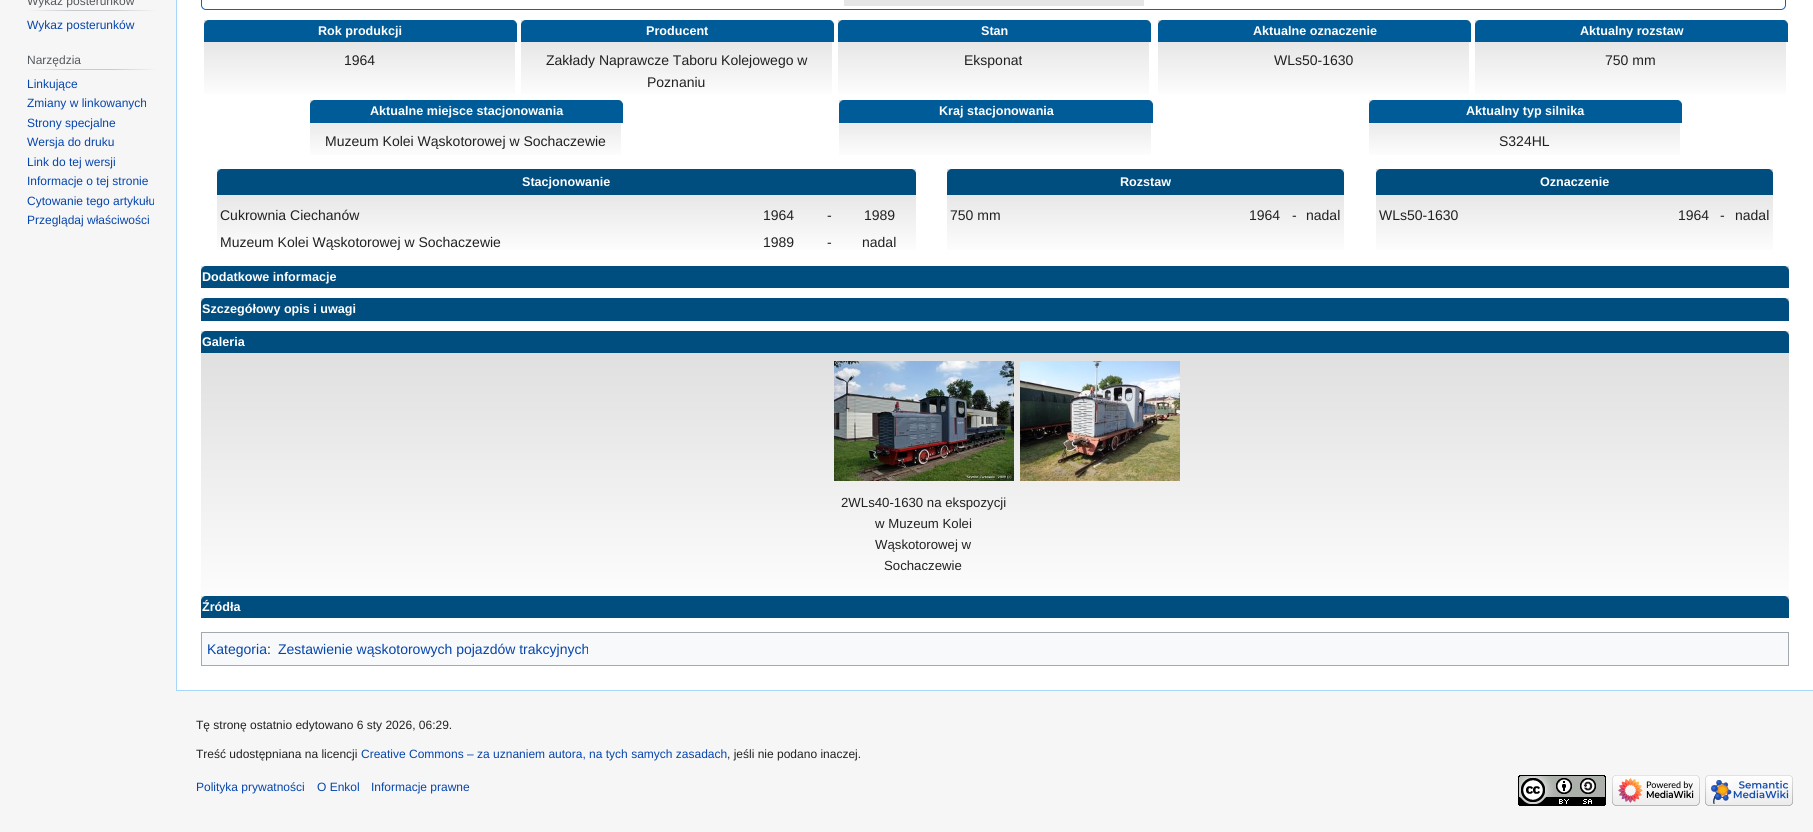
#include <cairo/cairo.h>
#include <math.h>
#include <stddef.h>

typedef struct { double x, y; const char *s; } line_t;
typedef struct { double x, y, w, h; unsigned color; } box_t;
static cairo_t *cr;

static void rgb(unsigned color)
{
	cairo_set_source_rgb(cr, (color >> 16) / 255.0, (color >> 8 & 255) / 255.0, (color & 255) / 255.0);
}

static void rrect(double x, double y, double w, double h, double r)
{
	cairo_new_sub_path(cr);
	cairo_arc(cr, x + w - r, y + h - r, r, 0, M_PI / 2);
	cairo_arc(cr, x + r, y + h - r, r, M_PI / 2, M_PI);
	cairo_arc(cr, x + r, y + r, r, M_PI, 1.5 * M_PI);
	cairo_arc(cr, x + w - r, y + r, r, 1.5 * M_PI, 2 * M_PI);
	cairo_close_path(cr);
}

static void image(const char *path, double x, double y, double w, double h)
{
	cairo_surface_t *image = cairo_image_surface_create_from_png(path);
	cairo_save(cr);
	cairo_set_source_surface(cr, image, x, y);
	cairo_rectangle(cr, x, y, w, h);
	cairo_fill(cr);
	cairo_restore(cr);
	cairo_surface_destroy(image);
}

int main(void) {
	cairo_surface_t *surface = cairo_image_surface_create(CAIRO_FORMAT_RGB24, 1813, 832);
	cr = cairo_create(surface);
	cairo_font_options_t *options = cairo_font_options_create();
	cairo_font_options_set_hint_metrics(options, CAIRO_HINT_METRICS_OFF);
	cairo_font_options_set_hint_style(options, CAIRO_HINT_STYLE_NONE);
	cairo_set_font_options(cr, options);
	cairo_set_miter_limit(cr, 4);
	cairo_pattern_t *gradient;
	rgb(0xf6f6f6);
	cairo_paint(cr);
	gradient = cairo_pattern_create_linear(27, 11, 158, 10);
	cairo_pattern_add_color_stop_rgba(gradient, 0, 0.965, 0.965, 0.965, 1);
	cairo_pattern_add_color_stop_rgba(gradient, 0.33, 0.784, 0.8, 0.82, 1);
	cairo_pattern_add_color_stop_rgba(gradient, 0.66, 0.784, 0.8, 0.82, 1);
	cairo_pattern_add_color_stop_rgba(gradient, 1, 0.965, 0.965, 0.965, 1);
	cairo_set_source(cr, gradient);
	cairo_pattern_destroy(gradient);
	cairo_rectangle(cr, 27, 10, 131, 1);
	cairo_fill(cr);
	gradient = cairo_pattern_create_linear(27, 70, 158, 70);
	cairo_pattern_add_color_stop_rgba(gradient, 0, 0.965, 0.965, 0.965, 1);
	cairo_pattern_add_color_stop_rgba(gradient, 0.33, 0.784, 0.8, 0.82, 1);
	cairo_pattern_add_color_stop_rgba(gradient, 0.66, 0.784, 0.8, 0.82, 1);
	cairo_pattern_add_color_stop_rgba(gradient, 1, 0.965, 0.965, 0.965, 1);
	cairo_set_source(cr, gradient);
	cairo_pattern_destroy(gradient);
	cairo_rectangle(cr, 27, 69, 131, 1);
	cairo_fill(cr);
	{
		static const box_t items[] = {
			{177, 0, 1636, 690, 0xffffff},
			{176, 690, 1637, 1, 0xa7d7f9},
			{176, 0, 1, 691, 0xa7d7f9},
		};
		for (size_t i = 0; i < sizeof items / sizeof *items; i++) {
			rgb(items[i].color);
			cairo_rectangle(cr, items[i].x, items[i].y, items[i].w, items[i].h);
			cairo_fill(cr);
		}
	}
	rrect(201.5, -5.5, 1584, 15, 4.5);
	rgb(0x0066cc);
	cairo_set_line_width(cr, 1);
	cairo_stroke(cr);
	rgb(0xe6e6e6);
	cairo_rectangle(cr, 844, 0, 300, 6);
	cairo_fill(cr);
	gradient = cairo_pattern_create_linear(360, 20, 360, 100);
	cairo_pattern_add_color_stop_rgba(gradient, 0, 0.867, 0.867, 0.867, 1);
	cairo_pattern_add_color_stop_rgba(gradient, 1, 1, 1, 1, 1);
	cairo_set_source(cr, gradient);
	cairo_pattern_destroy(gradient);
	cairo_rectangle(cr, 204, 20, 311, 74);
	cairo_fill(cr);
	rgb(0x005c99);
	cairo_new_path(cr);
	cairo_move_to(cr, 209, 20.5);
	cairo_line_to(cr, 512, 20.5);
	cairo_curve_to(cr, 514.5, 20.5, 516.5, 22.5, 516.5, 25);
	cairo_line_to(cr, 516.5, 41.5);
	cairo_line_to(cr, 204.5, 41.5);
	cairo_line_to(cr, 204.5, 25);
	cairo_curve_to(cr, 204.5, 22.5, 206.5, 20.5, 209, 20.5);
	cairo_close_path(cr);
	cairo_fill_preserve(cr);
	cairo_stroke(cr);
	gradient = cairo_pattern_create_linear(677, 20, 677, 100);
	cairo_pattern_add_color_stop_rgba(gradient, 0, 0.867, 0.867, 0.867, 1);
	cairo_pattern_add_color_stop_rgba(gradient, 1, 1, 1, 1, 1);
	cairo_set_source(cr, gradient);
	cairo_pattern_destroy(gradient);
	cairo_rectangle(cr, 521, 20, 311, 74);
	cairo_fill(cr);
	rgb(0x005c99);
	cairo_new_path(cr);
	cairo_move_to(cr, 526, 20.5);
	cairo_line_to(cr, 829, 20.5);
	cairo_curve_to(cr, 831.5, 20.5, 833.5, 22.5, 833.5, 25);
	cairo_line_to(cr, 833.5, 41.5);
	cairo_line_to(cr, 521.5, 41.5);
	cairo_line_to(cr, 521.5, 25);
	cairo_curve_to(cr, 521.5, 22.5, 523.5, 20.5, 526, 20.5);
	cairo_close_path(cr);
	cairo_fill_preserve(cr);
	cairo_stroke(cr);
	gradient = cairo_pattern_create_linear(994, 20, 994, 100);
	cairo_pattern_add_color_stop_rgba(gradient, 0, 0.867, 0.867, 0.867, 1);
	cairo_pattern_add_color_stop_rgba(gradient, 1, 1, 1, 1, 1);
	cairo_set_source(cr, gradient);
	cairo_pattern_destroy(gradient);
	cairo_rectangle(cr, 838, 20, 311, 74);
	cairo_fill(cr);
	rgb(0x005c99);
	cairo_new_path(cr);
	cairo_move_to(cr, 843, 20.5);
	cairo_line_to(cr, 1146, 20.5);
	cairo_curve_to(cr, 1148.5, 20.5, 1150.5, 22.5, 1150.5, 25);
	cairo_line_to(cr, 1150.5, 41.5);
	cairo_line_to(cr, 838.5, 41.5);
	cairo_line_to(cr, 838.5, 25);
	cairo_curve_to(cr, 838.5, 22.5, 840.5, 20.5, 843, 20.5);
	cairo_close_path(cr);
	cairo_fill_preserve(cr);
	cairo_stroke(cr);
	gradient = cairo_pattern_create_linear(1314, 20, 1314, 100);
	cairo_pattern_add_color_stop_rgba(gradient, 0, 0.867, 0.867, 0.867, 1);
	cairo_pattern_add_color_stop_rgba(gradient, 1, 1, 1, 1, 1);
	cairo_set_source(cr, gradient);
	cairo_pattern_destroy(gradient);
	cairo_rectangle(cr, 1158, 20, 311, 74);
	cairo_fill(cr);
	rgb(0x005c99);
	cairo_new_path(cr);
	cairo_move_to(cr, 1163, 20.5);
	cairo_line_to(cr, 1466, 20.5);
	cairo_curve_to(cr, 1468.5, 20.5, 1470.5, 22.5, 1470.5, 25);
	cairo_line_to(cr, 1470.5, 41.5);
	cairo_line_to(cr, 1158.5, 41.5);
	cairo_line_to(cr, 1158.5, 25);
	cairo_curve_to(cr, 1158.5, 22.5, 1160.5, 20.5, 1163, 20.5);
	cairo_close_path(cr);
	cairo_fill_preserve(cr);
	cairo_stroke(cr);
	gradient = cairo_pattern_create_linear(1631, 20, 1631, 100);
	cairo_pattern_add_color_stop_rgba(gradient, 0, 0.867, 0.867, 0.867, 1);
	cairo_pattern_add_color_stop_rgba(gradient, 1, 1, 1, 1, 1);
	cairo_set_source(cr, gradient);
	cairo_pattern_destroy(gradient);
	cairo_rectangle(cr, 1475, 20, 311, 74);
	cairo_fill(cr);
	rgb(0x005c99);
	cairo_new_path(cr);
	cairo_move_to(cr, 1480, 20.5);
	cairo_line_to(cr, 1783, 20.5);
	cairo_curve_to(cr, 1785.5, 20.5, 1787.5, 22.5, 1787.5, 25);
	cairo_line_to(cr, 1787.5, 41.5);
	cairo_line_to(cr, 1475.5, 41.5);
	cairo_line_to(cr, 1475.5, 25);
	cairo_curve_to(cr, 1475.5, 22.5, 1477.5, 20.5, 1480, 20.5);
	cairo_close_path(cr);
	cairo_fill_preserve(cr);
	cairo_stroke(cr);
	gradient = cairo_pattern_create_linear(466, 100, 466, 159);
	cairo_pattern_add_color_stop_rgba(gradient, 0, 0.867, 0.867, 0.867, 1);
	cairo_pattern_add_color_stop_rgba(gradient, 1, 1, 1, 1, 1);
	cairo_set_source(cr, gradient);
	cairo_pattern_destroy(gradient);
	cairo_rectangle(cr, 310, 100, 311, 55);
	cairo_fill(cr);
	rgb(0x005c99);
	cairo_new_path(cr);
	cairo_move_to(cr, 315, 100.5);
	cairo_line_to(cr, 618, 100.5);
	cairo_curve_to(cr, 620.5, 100.5, 622.5, 102.5, 622.5, 105);
	cairo_line_to(cr, 622.5, 122.5);
	cairo_line_to(cr, 310.5, 122.5);
	cairo_line_to(cr, 310.5, 105);
	cairo_curve_to(cr, 310.5, 102.5, 312.5, 100.5, 315, 100.5);
	cairo_close_path(cr);
	cairo_fill_preserve(cr);
	cairo_stroke(cr);
	gradient = cairo_pattern_create_linear(995, 100, 995, 159);
	cairo_pattern_add_color_stop_rgba(gradient, 0, 0.867, 0.867, 0.867, 1);
	cairo_pattern_add_color_stop_rgba(gradient, 1, 1, 1, 1, 1);
	cairo_set_source(cr, gradient);
	cairo_pattern_destroy(gradient);
	cairo_rectangle(cr, 839, 100, 312, 55);
	cairo_fill(cr);
	rgb(0x005c99);
	cairo_new_path(cr);
	cairo_move_to(cr, 844, 100.5);
	cairo_line_to(cr, 1148, 100.5);
	cairo_curve_to(cr, 1150.5, 100.5, 1152.5, 102.5, 1152.5, 105);
	cairo_line_to(cr, 1152.5, 122.5);
	cairo_line_to(cr, 839.5, 122.5);
	cairo_line_to(cr, 839.5, 105);
	cairo_curve_to(cr, 839.5, 102.5, 841.5, 100.5, 844, 100.5);
	cairo_close_path(cr);
	cairo_fill_preserve(cr);
	cairo_stroke(cr);
	gradient = cairo_pattern_create_linear(1525, 100, 1525, 159);
	cairo_pattern_add_color_stop_rgba(gradient, 0, 0.867, 0.867, 0.867, 1);
	cairo_pattern_add_color_stop_rgba(gradient, 1, 1, 1, 1, 1);
	cairo_set_source(cr, gradient);
	cairo_pattern_destroy(gradient);
	cairo_rectangle(cr, 1369, 100, 311, 55);
	cairo_fill(cr);
	rgb(0x005c99);
	cairo_new_path(cr);
	cairo_move_to(cr, 1374, 100.5);
	cairo_line_to(cr, 1677, 100.5);
	cairo_curve_to(cr, 1679.5, 100.5, 1681.5, 102.5, 1681.5, 105);
	cairo_line_to(cr, 1681.5, 122.5);
	cairo_line_to(cr, 1369.5, 122.5);
	cairo_line_to(cr, 1369.5, 105);
	cairo_curve_to(cr, 1369.5, 102.5, 1371.5, 100.5, 1374, 100.5);
	cairo_close_path(cr);
	cairo_fill_preserve(cr);
	cairo_stroke(cr);
	gradient = cairo_pattern_create_linear(567, 169, 567, 256);
	cairo_pattern_add_color_stop_rgba(gradient, 0, 0.867, 0.867, 0.867, 1);
	cairo_pattern_add_color_stop_rgba(gradient, 1, 1, 1, 1, 1);
	cairo_set_source(cr, gradient);
	cairo_pattern_destroy(gradient);
	cairo_rectangle(cr, 217, 169, 699, 81);
	cairo_fill(cr);
	rgb(0x004d80);
	cairo_new_path(cr);
	cairo_move_to(cr, 222, 169.5);
	cairo_line_to(cr, 911, 169.5);
	cairo_curve_to(cr, 913.5, 169.5, 915.5, 171.5, 915.5, 174);
	cairo_line_to(cr, 915.5, 194.5);
	cairo_line_to(cr, 217.5, 194.5);
	cairo_line_to(cr, 217.5, 174);
	cairo_curve_to(cr, 217.5, 171.5, 219.5, 169.5, 222, 169.5);
	cairo_close_path(cr);
	cairo_fill_preserve(cr);
	cairo_stroke(cr);
	gradient = cairo_pattern_create_linear(1146, 169, 1146, 256);
	cairo_pattern_add_color_stop_rgba(gradient, 0, 0.867, 0.867, 0.867, 1);
	cairo_pattern_add_color_stop_rgba(gradient, 1, 1, 1, 1, 1);
	cairo_set_source(cr, gradient);
	cairo_pattern_destroy(gradient);
	cairo_rectangle(cr, 947, 169, 397, 81);
	cairo_fill(cr);
	rgb(0x004d80);
	cairo_new_path(cr);
	cairo_move_to(cr, 952, 169.5);
	cairo_line_to(cr, 1339, 169.5);
	cairo_curve_to(cr, 1341.5, 169.5, 1343.5, 171.5, 1343.5, 174);
	cairo_line_to(cr, 1343.5, 194.5);
	cairo_line_to(cr, 947.5, 194.5);
	cairo_line_to(cr, 947.5, 174);
	cairo_curve_to(cr, 947.5, 171.5, 949.5, 169.5, 952, 169.5);
	cairo_close_path(cr);
	cairo_fill_preserve(cr);
	cairo_stroke(cr);
	gradient = cairo_pattern_create_linear(1575, 169, 1575, 256);
	cairo_pattern_add_color_stop_rgba(gradient, 0, 0.867, 0.867, 0.867, 1);
	cairo_pattern_add_color_stop_rgba(gradient, 1, 1, 1, 1, 1);
	cairo_set_source(cr, gradient);
	cairo_pattern_destroy(gradient);
	cairo_rectangle(cr, 1376, 169, 397, 81);
	cairo_fill(cr);
	rgb(0x004d80);
	cairo_new_path(cr);
	cairo_move_to(cr, 1381, 169.5);
	cairo_line_to(cr, 1768, 169.5);
	cairo_curve_to(cr, 1770.5, 169.5, 1772.5, 171.5, 1772.5, 174);
	cairo_line_to(cr, 1772.5, 194.5);
	cairo_line_to(cr, 1376.5, 194.5);
	cairo_line_to(cr, 1376.5, 174);
	cairo_curve_to(cr, 1376.5, 171.5, 1378.5, 169.5, 1381, 169.5);
	cairo_close_path(cr);
	cairo_fill_preserve(cr);
	cairo_stroke(cr);
	gradient = cairo_pattern_create_linear(995, 266, 995, 288);
	cairo_pattern_add_color_stop_rgba(gradient, 0, 0.867, 0.867, 0.867, 1);
	cairo_pattern_add_color_stop_rgba(gradient, 1, 1, 1, 1, 1);
	cairo_set_source(cr, gradient);
	cairo_pattern_destroy(gradient);
	cairo_rectangle(cr, 201, 266, 1588, 5);
	cairo_fill(cr);
	rgb(0x004d80);
	cairo_new_path(cr);
	cairo_move_to(cr, 206, 266.5);
	cairo_line_to(cr, 1784, 266.5);
	cairo_curve_to(cr, 1786.5, 266.5, 1788.5, 268.5, 1788.5, 271);
	cairo_line_to(cr, 1788.5, 287.5);
	cairo_line_to(cr, 201.5, 287.5);
	cairo_line_to(cr, 201.5, 271);
	cairo_curve_to(cr, 201.5, 268.5, 203.5, 266.5, 206, 266.5);
	cairo_close_path(cr);
	cairo_fill_preserve(cr);
	cairo_stroke(cr);
	gradient = cairo_pattern_create_linear(995, 298, 995, 321);
	cairo_pattern_add_color_stop_rgba(gradient, 0, 0.867, 0.867, 0.867, 1);
	cairo_pattern_add_color_stop_rgba(gradient, 1, 1, 1, 1, 1);
	cairo_set_source(cr, gradient);
	cairo_pattern_destroy(gradient);
	cairo_rectangle(cr, 201, 298, 1588, 5);
	cairo_fill(cr);
	rgb(0x004d80);
	cairo_new_path(cr);
	cairo_move_to(cr, 206, 298.5);
	cairo_line_to(cr, 1784, 298.5);
	cairo_curve_to(cr, 1786.5, 298.5, 1788.5, 300.5, 1788.5, 303);
	cairo_line_to(cr, 1788.5, 320.5);
	cairo_line_to(cr, 201.5, 320.5);
	cairo_line_to(cr, 201.5, 303);
	cairo_curve_to(cr, 201.5, 300.5, 203.5, 298.5, 206, 298.5);
	cairo_close_path(cr);
	cairo_fill_preserve(cr);
	cairo_stroke(cr);
	gradient = cairo_pattern_create_linear(995, 331, 995, 618);
	cairo_pattern_add_color_stop_rgba(gradient, 0, 0.867, 0.867, 0.867, 1);
	cairo_pattern_add_color_stop_rgba(gradient, 1, 1, 1, 1, 1);
	cairo_set_source(cr, gradient);
	cairo_pattern_destroy(gradient);
	cairo_rectangle(cr, 201, 331, 1588, 265);
	cairo_fill(cr);
	rgb(0x004d80);
	cairo_new_path(cr);
	cairo_move_to(cr, 206, 331.5);
	cairo_line_to(cr, 1784, 331.5);
	cairo_curve_to(cr, 1786.5, 331.5, 1788.5, 333.5, 1788.5, 336);
	cairo_line_to(cr, 1788.5, 352.5);
	cairo_line_to(cr, 201.5, 352.5);
	cairo_line_to(cr, 201.5, 336);
	cairo_curve_to(cr, 201.5, 333.5, 203.5, 331.5, 206, 331.5);
	cairo_close_path(cr);
	cairo_fill_preserve(cr);
	cairo_stroke(cr);
	image("img/1.png", 1020, 361, 160, 120);
	image("img/2.png", 834, 361, 180, 120);
	gradient = cairo_pattern_create_linear(995, 596, 995, 618);
	cairo_pattern_add_color_stop_rgba(gradient, 0, 0.867, 0.867, 0.867, 1);
	cairo_pattern_add_color_stop_rgba(gradient, 1, 1, 1, 1, 1);
	cairo_set_source(cr, gradient);
	cairo_pattern_destroy(gradient);
	cairo_rectangle(cr, 201, 596, 1588, 5);
	cairo_fill(cr);
	rgb(0x004d80);
	cairo_new_path(cr);
	cairo_move_to(cr, 206, 596.5);
	cairo_line_to(cr, 1784, 596.5);
	cairo_curve_to(cr, 1786.5, 596.5, 1788.5, 598.5, 1788.5, 601);
	cairo_line_to(cr, 1788.5, 617.5);
	cairo_line_to(cr, 201.5, 617.5);
	cairo_line_to(cr, 201.5, 601);
	cairo_curve_to(cr, 201.5, 598.5, 203.5, 596.5, 206, 596.5);
	cairo_close_path(cr);
	cairo_fill_preserve(cr);
	cairo_stroke(cr);
	rgb(0xf8f9fa);
	cairo_rectangle(cr, 201.5, 632.5, 1587, 33);
	cairo_fill_preserve(cr);
	rgb(0xa2a9b1);
	cairo_stroke(cr);
	image("img/3.png", 1518, 775, 88, 31);
	image("img/4.png", 1612, 775, 88, 31);
	image("img/5.png", 1705, 775, 88, 31);
	cairo_select_font_face(cr, "Liberation Sans", CAIRO_FONT_SLANT_NORMAL, CAIRO_FONT_WEIGHT_NORMAL);
	cairo_set_font_size(cr, 12);
	rgb(0x54595d);
	cairo_move_to(cr, 27, 5);
	cairo_show_text(cr, "Wykaz posterunków");
	rgb(0x0645ad);
	cairo_move_to(cr, 27, 29);
	cairo_show_text(cr, "Wykaz posterunków");
	rgb(0x54595d);
	cairo_move_to(cr, 27, 64);
	cairo_show_text(cr, "Narzędzia");
	rgb(0x0645ad);
	{
		static const line_t items[] = {
			{27, 88, "Linkujące"},
			{27, 107, "Zmiany w linkowanych"},
			{27, 127, "Strony specjalne"},
			{27, 146, "Wersja do druku"},
			{27, 166, "Link do tej wersji"},
			{27, 185, "Informacje o tej stronie"},
			{27, 205, "Cytowanie tego artykułu"},
			{27, 224, "Przeglądaj właściwości"},
		};
		for (size_t i = 0; i < sizeof items / sizeof *items; i++) {
			cairo_move_to(cr, items[i].x, items[i].y);
			cairo_show_text(cr, items[i].s);
		}
	}
	cairo_select_font_face(cr, "Liberation Sans", CAIRO_FONT_SLANT_NORMAL, CAIRO_FONT_WEIGHT_BOLD);
	cairo_set_font_size(cr, 12.6);
	rgb(0xffffff);
	cairo_move_to(cr, 318, 35);
	cairo_show_text(cr, "Rok produkcji");
	cairo_select_font_face(cr, "Liberation Sans", CAIRO_FONT_SLANT_NORMAL, CAIRO_FONT_WEIGHT_NORMAL);
	cairo_set_font_size(cr, 14);
	rgb(0x202122);
	cairo_move_to(cr, 344, 65);
	cairo_show_text(cr, "1964");
	cairo_select_font_face(cr, "Liberation Sans", CAIRO_FONT_SLANT_NORMAL, CAIRO_FONT_WEIGHT_BOLD);
	cairo_set_font_size(cr, 12.6);
	rgb(0xffffff);
	cairo_move_to(cr, 646, 35);
	cairo_show_text(cr, "Producent");
	cairo_select_font_face(cr, "Liberation Sans", CAIRO_FONT_SLANT_NORMAL, CAIRO_FONT_WEIGHT_NORMAL);
	cairo_set_font_size(cr, 14);
	rgb(0x202122);
	cairo_move_to(cr, 546, 65);
	cairo_show_text(cr, "Zakłady Naprawcze Taboru Kolejowego w");
	cairo_move_to(cr, 647, 87);
	cairo_show_text(cr, "Poznaniu");
	cairo_select_font_face(cr, "Liberation Sans", CAIRO_FONT_SLANT_NORMAL, CAIRO_FONT_WEIGHT_BOLD);
	cairo_set_font_size(cr, 12.6);
	rgb(0xffffff);
	cairo_move_to(cr, 981, 35);
	cairo_show_text(cr, "Stan");
	cairo_select_font_face(cr, "Liberation Sans", CAIRO_FONT_SLANT_NORMAL, CAIRO_FONT_WEIGHT_NORMAL);
	cairo_set_font_size(cr, 14);
	rgb(0x202122);
	cairo_move_to(cr, 964, 65);
	cairo_show_text(cr, "Eksponat");
	cairo_select_font_face(cr, "Liberation Sans", CAIRO_FONT_SLANT_NORMAL, CAIRO_FONT_WEIGHT_BOLD);
	cairo_set_font_size(cr, 12.6);
	rgb(0xffffff);
	cairo_move_to(cr, 1253, 35);
	cairo_show_text(cr, "Aktualne oznaczenie");
	cairo_select_font_face(cr, "Liberation Sans", CAIRO_FONT_SLANT_NORMAL, CAIRO_FONT_WEIGHT_NORMAL);
	cairo_set_font_size(cr, 14);
	rgb(0x202122);
	cairo_move_to(cr, 1274, 65);
	cairo_show_text(cr, "WLs50-1630");
	cairo_select_font_face(cr, "Liberation Sans", CAIRO_FONT_SLANT_NORMAL, CAIRO_FONT_WEIGHT_BOLD);
	cairo_set_font_size(cr, 12.6);
	rgb(0xffffff);
	cairo_move_to(cr, 1580, 35);
	cairo_show_text(cr, "Aktualny rozstaw");
	cairo_select_font_face(cr, "Liberation Sans", CAIRO_FONT_SLANT_NORMAL, CAIRO_FONT_WEIGHT_NORMAL);
	cairo_set_font_size(cr, 14);
	rgb(0x202122);
	cairo_move_to(cr, 1605, 65);
	cairo_show_text(cr, "750 mm");
	cairo_select_font_face(cr, "Liberation Sans", CAIRO_FONT_SLANT_NORMAL, CAIRO_FONT_WEIGHT_BOLD);
	cairo_set_font_size(cr, 12.6);
	rgb(0xffffff);
	cairo_move_to(cr, 370, 115);
	cairo_show_text(cr, "Aktualne miejsce stacjonowania");
	cairo_select_font_face(cr, "Liberation Sans", CAIRO_FONT_SLANT_NORMAL, CAIRO_FONT_WEIGHT_NORMAL);
	cairo_set_font_size(cr, 14);
	rgb(0x202122);
	cairo_move_to(cr, 325, 146);
	cairo_show_text(cr, "Muzeum Kolei Wąskotorowej w Sochaczewie");
	cairo_select_font_face(cr, "Liberation Sans", CAIRO_FONT_SLANT_NORMAL, CAIRO_FONT_WEIGHT_BOLD);
	cairo_set_font_size(cr, 12.6);
	rgb(0xffffff);
	cairo_move_to(cr, 939, 115);
	cairo_show_text(cr, "Kraj stacjonowania");
	cairo_move_to(cr, 1466, 115);
	cairo_show_text(cr, "Aktualny typ silnika");
	cairo_select_font_face(cr, "Liberation Sans", CAIRO_FONT_SLANT_NORMAL, CAIRO_FONT_WEIGHT_NORMAL);
	cairo_set_font_size(cr, 14);
	rgb(0x202122);
	cairo_move_to(cr, 1499, 146);
	cairo_show_text(cr, "S324HL");
	cairo_select_font_face(cr, "Liberation Sans", CAIRO_FONT_SLANT_NORMAL, CAIRO_FONT_WEIGHT_BOLD);
	cairo_set_font_size(cr, 12.6);
	rgb(0xffffff);
	cairo_move_to(cr, 522, 186);
	cairo_show_text(cr, "Stacjonowanie");
	cairo_select_font_face(cr, "Liberation Sans", CAIRO_FONT_SLANT_NORMAL, CAIRO_FONT_WEIGHT_NORMAL);
	cairo_set_font_size(cr, 14);
	rgb(0x202122);
	{
		static const line_t items[] = {
			{220, 220, "Cukrownia Ciechanów"},
			{763, 220, "1964"},
			{827, 220, "-"},
			{864, 220, "1989"},
			{220, 247, "Muzeum Kolei Wąskotorowej w Sochaczewie"},
			{763, 247, "1989"},
			{827, 247, "-"},
			{862, 247, "nadal"},
		};
		for (size_t i = 0; i < sizeof items / sizeof *items; i++) {
			cairo_move_to(cr, items[i].x, items[i].y);
			cairo_show_text(cr, items[i].s);
		}
	}
	cairo_select_font_face(cr, "Liberation Sans", CAIRO_FONT_SLANT_NORMAL, CAIRO_FONT_WEIGHT_BOLD);
	cairo_set_font_size(cr, 12.6);
	rgb(0xffffff);
	cairo_move_to(cr, 1120, 186);
	cairo_show_text(cr, "Rozstaw");
	cairo_select_font_face(cr, "Liberation Sans", CAIRO_FONT_SLANT_NORMAL, CAIRO_FONT_WEIGHT_NORMAL);
	cairo_set_font_size(cr, 14);
	rgb(0x202122);
	{
		static const line_t items[] = {
			{950, 220, "750 mm"},
			{1249, 220, "1964"},
			{1292, 220, "-"},
			{1306, 220, "nadal"},
		};
		for (size_t i = 0; i < sizeof items / sizeof *items; i++) {
			cairo_move_to(cr, items[i].x, items[i].y);
			cairo_show_text(cr, items[i].s);
		}
	}
	cairo_select_font_face(cr, "Liberation Sans", CAIRO_FONT_SLANT_NORMAL, CAIRO_FONT_WEIGHT_BOLD);
	cairo_set_font_size(cr, 12.6);
	rgb(0xffffff);
	cairo_move_to(cr, 1540, 186);
	cairo_show_text(cr, "Oznaczenie");
	cairo_select_font_face(cr, "Liberation Sans", CAIRO_FONT_SLANT_NORMAL, CAIRO_FONT_WEIGHT_NORMAL);
	cairo_set_font_size(cr, 14);
	rgb(0x202122);
	{
		static const line_t items[] = {
			{1379, 220, "WLs50-1630"},
			{1678, 220, "1964"},
			{1720, 220, "-"},
			{1735, 220, "nadal"},
		};
		for (size_t i = 0; i < sizeof items / sizeof *items; i++) {
			cairo_move_to(cr, items[i].x, items[i].y);
			cairo_show_text(cr, items[i].s);
		}
	}
	cairo_select_font_face(cr, "Liberation Sans", CAIRO_FONT_SLANT_NORMAL, CAIRO_FONT_WEIGHT_BOLD);
	cairo_set_font_size(cr, 12.6);
	rgb(0xffffff);
	{
		static const line_t items[] = {
			{202, 281, "Dodatkowe informacje"},
			{202, 313, "Szczegółowy opis i uwagi"},
			{202, 346, "Galeria"},
		};
		for (size_t i = 0; i < sizeof items / sizeof *items; i++) {
			cairo_move_to(cr, items[i].x, items[i].y);
			cairo_show_text(cr, items[i].s);
		}
	}
	cairo_select_font_face(cr, "Liberation Sans", CAIRO_FONT_SLANT_NORMAL, CAIRO_FONT_WEIGHT_NORMAL);
	cairo_set_font_size(cr, 13.2);
	rgb(0x202122);
	{
		static const line_t items[] = {
			{841, 507, "2WLs40-1630 na ekspozycji"},
			{875, 528, "w Muzeum Kolei"},
			{875, 549, "Wąskotorowej w"},
			{884, 570, "Sochaczewie"},
		};
		for (size_t i = 0; i < sizeof items / sizeof *items; i++) {
			cairo_move_to(cr, items[i].x, items[i].y);
			cairo_show_text(cr, items[i].s);
		}
	}
	cairo_select_font_face(cr, "Liberation Sans", CAIRO_FONT_SLANT_NORMAL, CAIRO_FONT_WEIGHT_BOLD);
	cairo_set_font_size(cr, 12.6);
	rgb(0xffffff);
	cairo_move_to(cr, 202, 611);
	cairo_show_text(cr, "Źródła");
	cairo_select_font_face(cr, "Liberation Sans", CAIRO_FONT_SLANT_NORMAL, CAIRO_FONT_WEIGHT_NORMAL);
	cairo_set_font_size(cr, 14);
	rgb(0x0645ad);
	cairo_move_to(cr, 207, 654);
	cairo_show_text(cr, "Kategoria");
	rgb(0x202122);
	cairo_move_to(cr, 267, 654);
	cairo_show_text(cr, ":");
	rgb(0x0645ad);
	cairo_move_to(cr, 278, 654);
	cairo_show_text(cr, "Zestawienie wąskotorowych pojazdów trakcyjnych");
	cairo_set_font_size(cr, 12);
	rgb(0x202122);
	cairo_move_to(cr, 196, 729);
	cairo_show_text(cr, "Tę stronę ostatnio edytowano 6 sty 2026, 06:29.");
	cairo_move_to(cr, 196, 758);
	cairo_show_text(cr, "Treść udostępniana na licencji");
	rgb(0x0645ad);
	cairo_move_to(cr, 361, 758);
	cairo_show_text(cr, "Creative Commons – za uznaniem autora, na tych samych zasadach");
	rgb(0x202122);
	cairo_move_to(cr, 727, 758);
	cairo_show_text(cr, ", jeśli nie podano inaczej.");
	rgb(0x0645ad);
	{
		static const line_t items[] = {
			{196, 791, "Polityka prywatności"},
			{317, 791, "O Enkol"},
			{371, 791, "Informacje prawne"},
		};
		for (size_t i = 0; i < sizeof items / sizeof *items; i++) {
			cairo_move_to(cr, items[i].x, items[i].y);
			cairo_show_text(cr, items[i].s);
		}
	}
	cairo_surface_write_to_png(surface, "page.png");
	cairo_font_options_destroy(options);
	cairo_destroy(cr);
	cairo_surface_destroy(surface);
	return 0;
}
